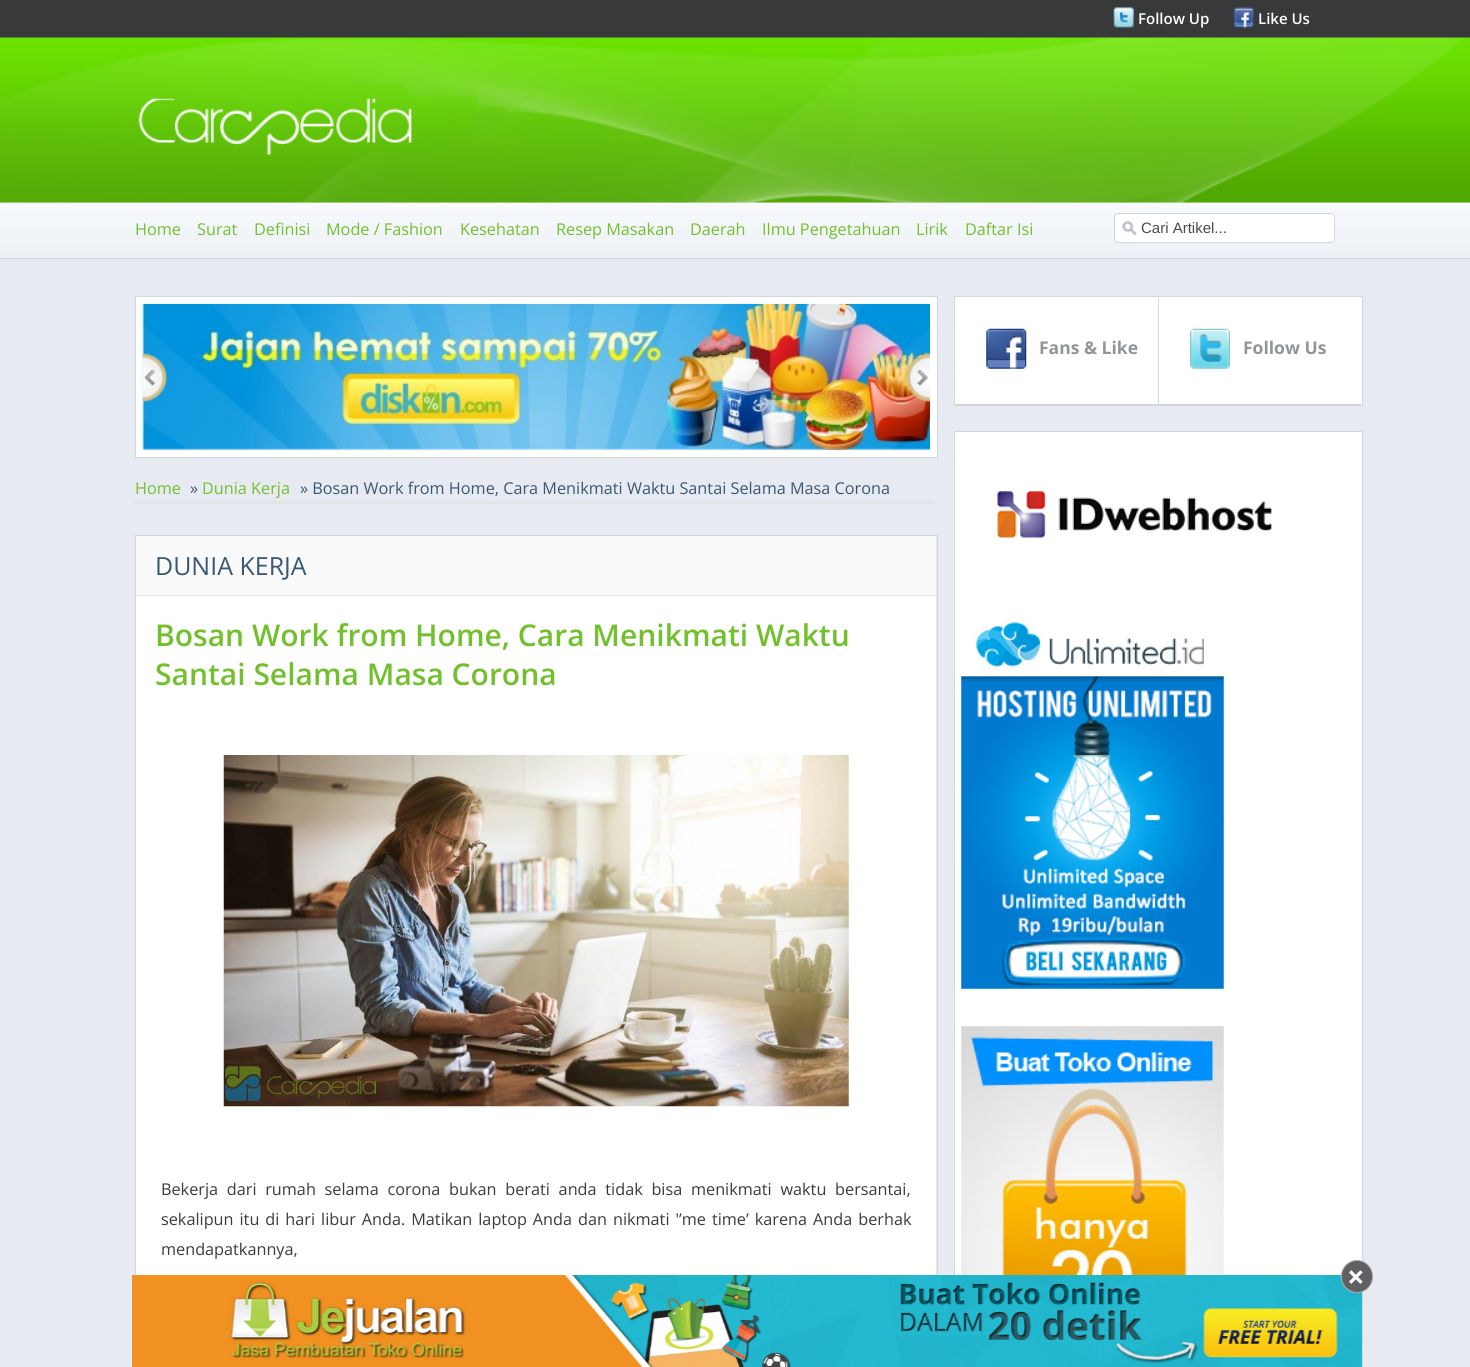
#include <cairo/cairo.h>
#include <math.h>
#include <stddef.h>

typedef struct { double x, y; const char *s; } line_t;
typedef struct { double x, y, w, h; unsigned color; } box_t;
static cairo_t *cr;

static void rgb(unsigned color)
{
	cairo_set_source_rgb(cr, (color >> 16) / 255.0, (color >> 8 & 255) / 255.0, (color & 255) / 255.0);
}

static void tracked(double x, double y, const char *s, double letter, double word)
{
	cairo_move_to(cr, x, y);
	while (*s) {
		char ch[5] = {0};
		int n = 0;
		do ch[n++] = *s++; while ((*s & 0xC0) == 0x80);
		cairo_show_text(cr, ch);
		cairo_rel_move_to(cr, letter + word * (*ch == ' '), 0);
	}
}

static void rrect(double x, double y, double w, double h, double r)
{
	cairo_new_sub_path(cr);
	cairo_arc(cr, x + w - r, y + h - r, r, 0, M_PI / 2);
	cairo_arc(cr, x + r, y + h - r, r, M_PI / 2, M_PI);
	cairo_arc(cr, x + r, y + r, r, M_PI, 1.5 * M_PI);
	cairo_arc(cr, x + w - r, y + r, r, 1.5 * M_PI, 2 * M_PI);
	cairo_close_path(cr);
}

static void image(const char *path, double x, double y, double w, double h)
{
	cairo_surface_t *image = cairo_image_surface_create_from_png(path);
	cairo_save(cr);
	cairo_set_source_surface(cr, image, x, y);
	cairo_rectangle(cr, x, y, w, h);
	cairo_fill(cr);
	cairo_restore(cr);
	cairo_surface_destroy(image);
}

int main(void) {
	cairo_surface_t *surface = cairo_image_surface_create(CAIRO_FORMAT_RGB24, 1470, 1367);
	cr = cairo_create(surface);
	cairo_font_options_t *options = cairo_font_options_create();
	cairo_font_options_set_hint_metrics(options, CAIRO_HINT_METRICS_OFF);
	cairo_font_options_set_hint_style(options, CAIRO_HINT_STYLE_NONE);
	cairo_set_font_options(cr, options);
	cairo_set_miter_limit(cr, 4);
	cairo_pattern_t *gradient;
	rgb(0xe7eaf1);
	cairo_paint(cr);
	rgb(0x38393b);
	cairo_rectangle(cr, 0, 0, 1470, 38);
	cairo_fill(cr);
	image("img/1.png", 1113, 7, 21, 21);
	image("img/2.png", 1233, 7, 21, 21);
	image("img/3.png", 0, 37, 1470, 166);
	image("img/4.png", 138, 98, 274, 58);
	gradient = cairo_pattern_create_linear(735, 202, 735, 258);
	cairo_pattern_add_color_stop_rgba(gradient, 0, 0.976, 0.98, 0.988, 1);
	cairo_pattern_add_color_stop_rgba(gradient, 0.47, 0.949, 0.965, 0.976, 1);
	cairo_pattern_add_color_stop_rgba(gradient, 1, 0.929, 0.941, 0.961, 1);
	cairo_set_source(cr, gradient);
	cairo_pattern_destroy(gradient);
	cairo_rectangle(cr, 0, 203, 1470, 55);
	cairo_fill(cr);
	rgb(0xcfd7d9);
	cairo_rectangle(cr, 0, 258, 1470, 1);
	cairo_fill(cr);
	rgb(0xffffff);
	rrect(1114, 213, 221, 30, 4);
	cairo_fill(cr);
	image("img/5.png", 1122, 221, 15, 15);
	rrect(1114.5, 213.5, 220, 29, 3.5);
	rgb(0xd1d6d9);
	cairo_set_line_width(cr, 1);
	cairo_stroke(cr);
	rgb(0xffffff);
	cairo_rectangle(cr, 954.5, 296.5, 408, 109);
	cairo_fill_preserve(cr);
	rgb(0xd0d8da);
	cairo_stroke(cr);
	rgb(0xcfd7d9);
	cairo_rectangle(cr, 955, 404, 203, 1);
	cairo_fill(cr);
	image("img/6.png", 986, 328, 41, 41);
	cairo_rectangle(cr, 1158, 298, 1, 107);
	cairo_fill(cr);
	cairo_rectangle(cr, 1159, 404, 202, 1);
	cairo_fill(cr);
	image("img/7.png", 1190, 328, 40, 41);
	rgb(0xffffff);
	cairo_rectangle(cr, 955, 432, 407, 843);
	cairo_fill(cr);
	cairo_rectangle(cr, 954.5, 431.5, 408, 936);
	rgb(0xd0d8da);
	cairo_stroke(cr);
	image("img/8.png", 993, 491, 279, 50);
	image("img/9.png", 961, 622, 263, 367);
	image("img/10.png", 961, 1026, 263, 249);
	rgb(0xffffff);
	cairo_rectangle(cr, 135.5, 296.5, 802, 161);
	cairo_fill_preserve(cr);
	rgb(0xcfd7d9);
	cairo_stroke(cr);
	image("img/11.png", 142, 303, 788, 147);
	image("img/12.png", 142, 353, 25, 49);
	image("img/13.png", 906, 353, 24, 49);
	rgb(0xe4e4e4);
	cairo_rectangle(cr, 135, 501, 800, 3);
	cairo_fill(cr);
	cairo_rectangle(cr, 135.5, 535.5, 802, 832);
	rgb(0xd1d7d7);
	cairo_stroke(cr);
	{
		static const box_t items[] = {
			{136, 536, 800, 59, 0xfafafa},
			{136, 595, 800, 1, 0xe1e1e1},
			{136, 596, 800, 679, 0xffffff},
		};
		for (size_t i = 0; i < sizeof items / sizeof *items; i++) {
			rgb(items[i].color);
			cairo_rectangle(cr, items[i].x, items[i].y, items[i].w, items[i].h);
			cairo_fill(cr);
		}
	}
	image("img/14.png", 223, 755, 626, 352);
	image("img/15.png", 132, 1275, 1230, 92);
	rgb(0x605f61);
	rrect(1341.5, 1260.5, 31, 32, 15.5);
	cairo_fill_preserve(cr);
	rgb(0xaeaeae);
	cairo_stroke(cr);
	cairo_select_font_face(cr, "Open Sans SemiBold", CAIRO_FONT_SLANT_NORMAL, CAIRO_FONT_WEIGHT_NORMAL);
	cairo_set_font_size(cr, 15);
	rgb(0xffffff);
	cairo_move_to(cr, 1138, 24);
	cairo_show_text(cr, "Follow Up");
	cairo_move_to(cr, 1258, 24);
	cairo_show_text(cr, "Like Us");
	cairo_select_font_face(cr, "Open Sans", CAIRO_FONT_SLANT_NORMAL, CAIRO_FONT_WEIGHT_NORMAL);
	cairo_set_font_size(cr, 16.25);
	rgb(0x72c02e);
	{
		static const line_t items[] = {
			{135, 235, "Home"},
			{197, 235, "Surat"},
			{254, 235, "Definisi"},
			{326, 235, "Mode / Fashion"},
			{460, 235, "Kesehatan"},
			{556, 235, "Resep Masakan"},
			{690, 235, "Daerah"},
			{762, 235, "Ilmu Pengetahuan"},
			{916, 235, "Lirik"},
			{965, 235, "Daftar Isi"},
		};
		for (size_t i = 0; i < sizeof items / sizeof *items; i++) {
			cairo_move_to(cr, items[i].x, items[i].y);
			cairo_show_text(cr, items[i].s);
		}
	}
	cairo_select_font_face(cr, "Liberation Sans", CAIRO_FONT_SLANT_NORMAL, CAIRO_FONT_WEIGHT_NORMAL);
	cairo_set_font_size(cr, 15);
	rgb(0x4b4b4b);
	cairo_move_to(cr, 1141, 233);
	cairo_show_text(cr, "Cari Artikel...");
	cairo_select_font_face(cr, "Open Sans", CAIRO_FONT_SLANT_NORMAL, CAIRO_FONT_WEIGHT_BOLD);
	cairo_set_font_size(cr, 17.5);
	rgb(0x919598);
	cairo_move_to(cr, 1039, 354);
	cairo_show_text(cr, "Fans & Like");
	cairo_move_to(cr, 1243, 354);
	cairo_show_text(cr, "Follow Us");
	cairo_select_font_face(cr, "Open Sans", CAIRO_FONT_SLANT_NORMAL, CAIRO_FONT_WEIGHT_NORMAL);
	cairo_set_font_size(cr, 16.25);
	rgb(0x72c02e);
	cairo_move_to(cr, 135, 494);
	cairo_show_text(cr, "Home");
	rgb(0x3a5874);
	cairo_move_to(cr, 190, 494);
	cairo_show_text(cr, "»");
	rgb(0x72c02e);
	cairo_move_to(cr, 202, 494);
	cairo_show_text(cr, "Dunia Kerja");
	rgb(0x3a5874);
	cairo_move_to(cr, 300, 494);
	cairo_show_text(cr, "» Bosan Work from Home, Cara Menikmati Waktu Santai Selama Masa Corona");
	cairo_set_font_size(cr, 25);
	cairo_move_to(cr, 155, 575);
	cairo_show_text(cr, "DUNIA KERJA");
	cairo_select_font_face(cr, "Open Sans SemiBold", CAIRO_FONT_SLANT_NORMAL, CAIRO_FONT_WEIGHT_NORMAL);
	cairo_set_font_size(cr, 30);
	rgb(0x72c02e);
	cairo_move_to(cr, 155, 646);
	cairo_show_text(cr, "Bosan Work from Home, Cara Menikmati Waktu");
	cairo_move_to(cr, 155, 685);
	cairo_show_text(cr, "Santai Selama Masa Corona");
	cairo_select_font_face(cr, "Open Sans", CAIRO_FONT_SLANT_NORMAL, CAIRO_FONT_WEIGHT_NORMAL);
	cairo_set_font_size(cr, 16.25);
	rgb(0x3a3c3b);
	tracked(161, 1195, "Bekerja dari rumah selama corona bukan berati anda tidak bisa menikmati waktu bersantai,", 0, 4.5);
	tracked(161, 1225, "sekalipun itu di hari libur Anda. Matikan laptop Anda dan nikmati '’me time’ karena Anda berhak", 0, 1.75);
	cairo_move_to(cr, 161, 1255);
	cairo_show_text(cr, "mendapatkannya,");
	cairo_select_font_face(cr, "Open Sans", CAIRO_FONT_SLANT_NORMAL, CAIRO_FONT_WEIGHT_BOLD);
	cairo_set_font_size(cr, 31);
	rgb(0xffffff);
	cairo_move_to(cr, 1347, 1288);
	cairo_show_text(cr, "×");
	cairo_surface_write_to_png(surface, "page.png");
	cairo_font_options_destroy(options);
	cairo_destroy(cr);
	cairo_surface_destroy(surface);
	return 0;
}
